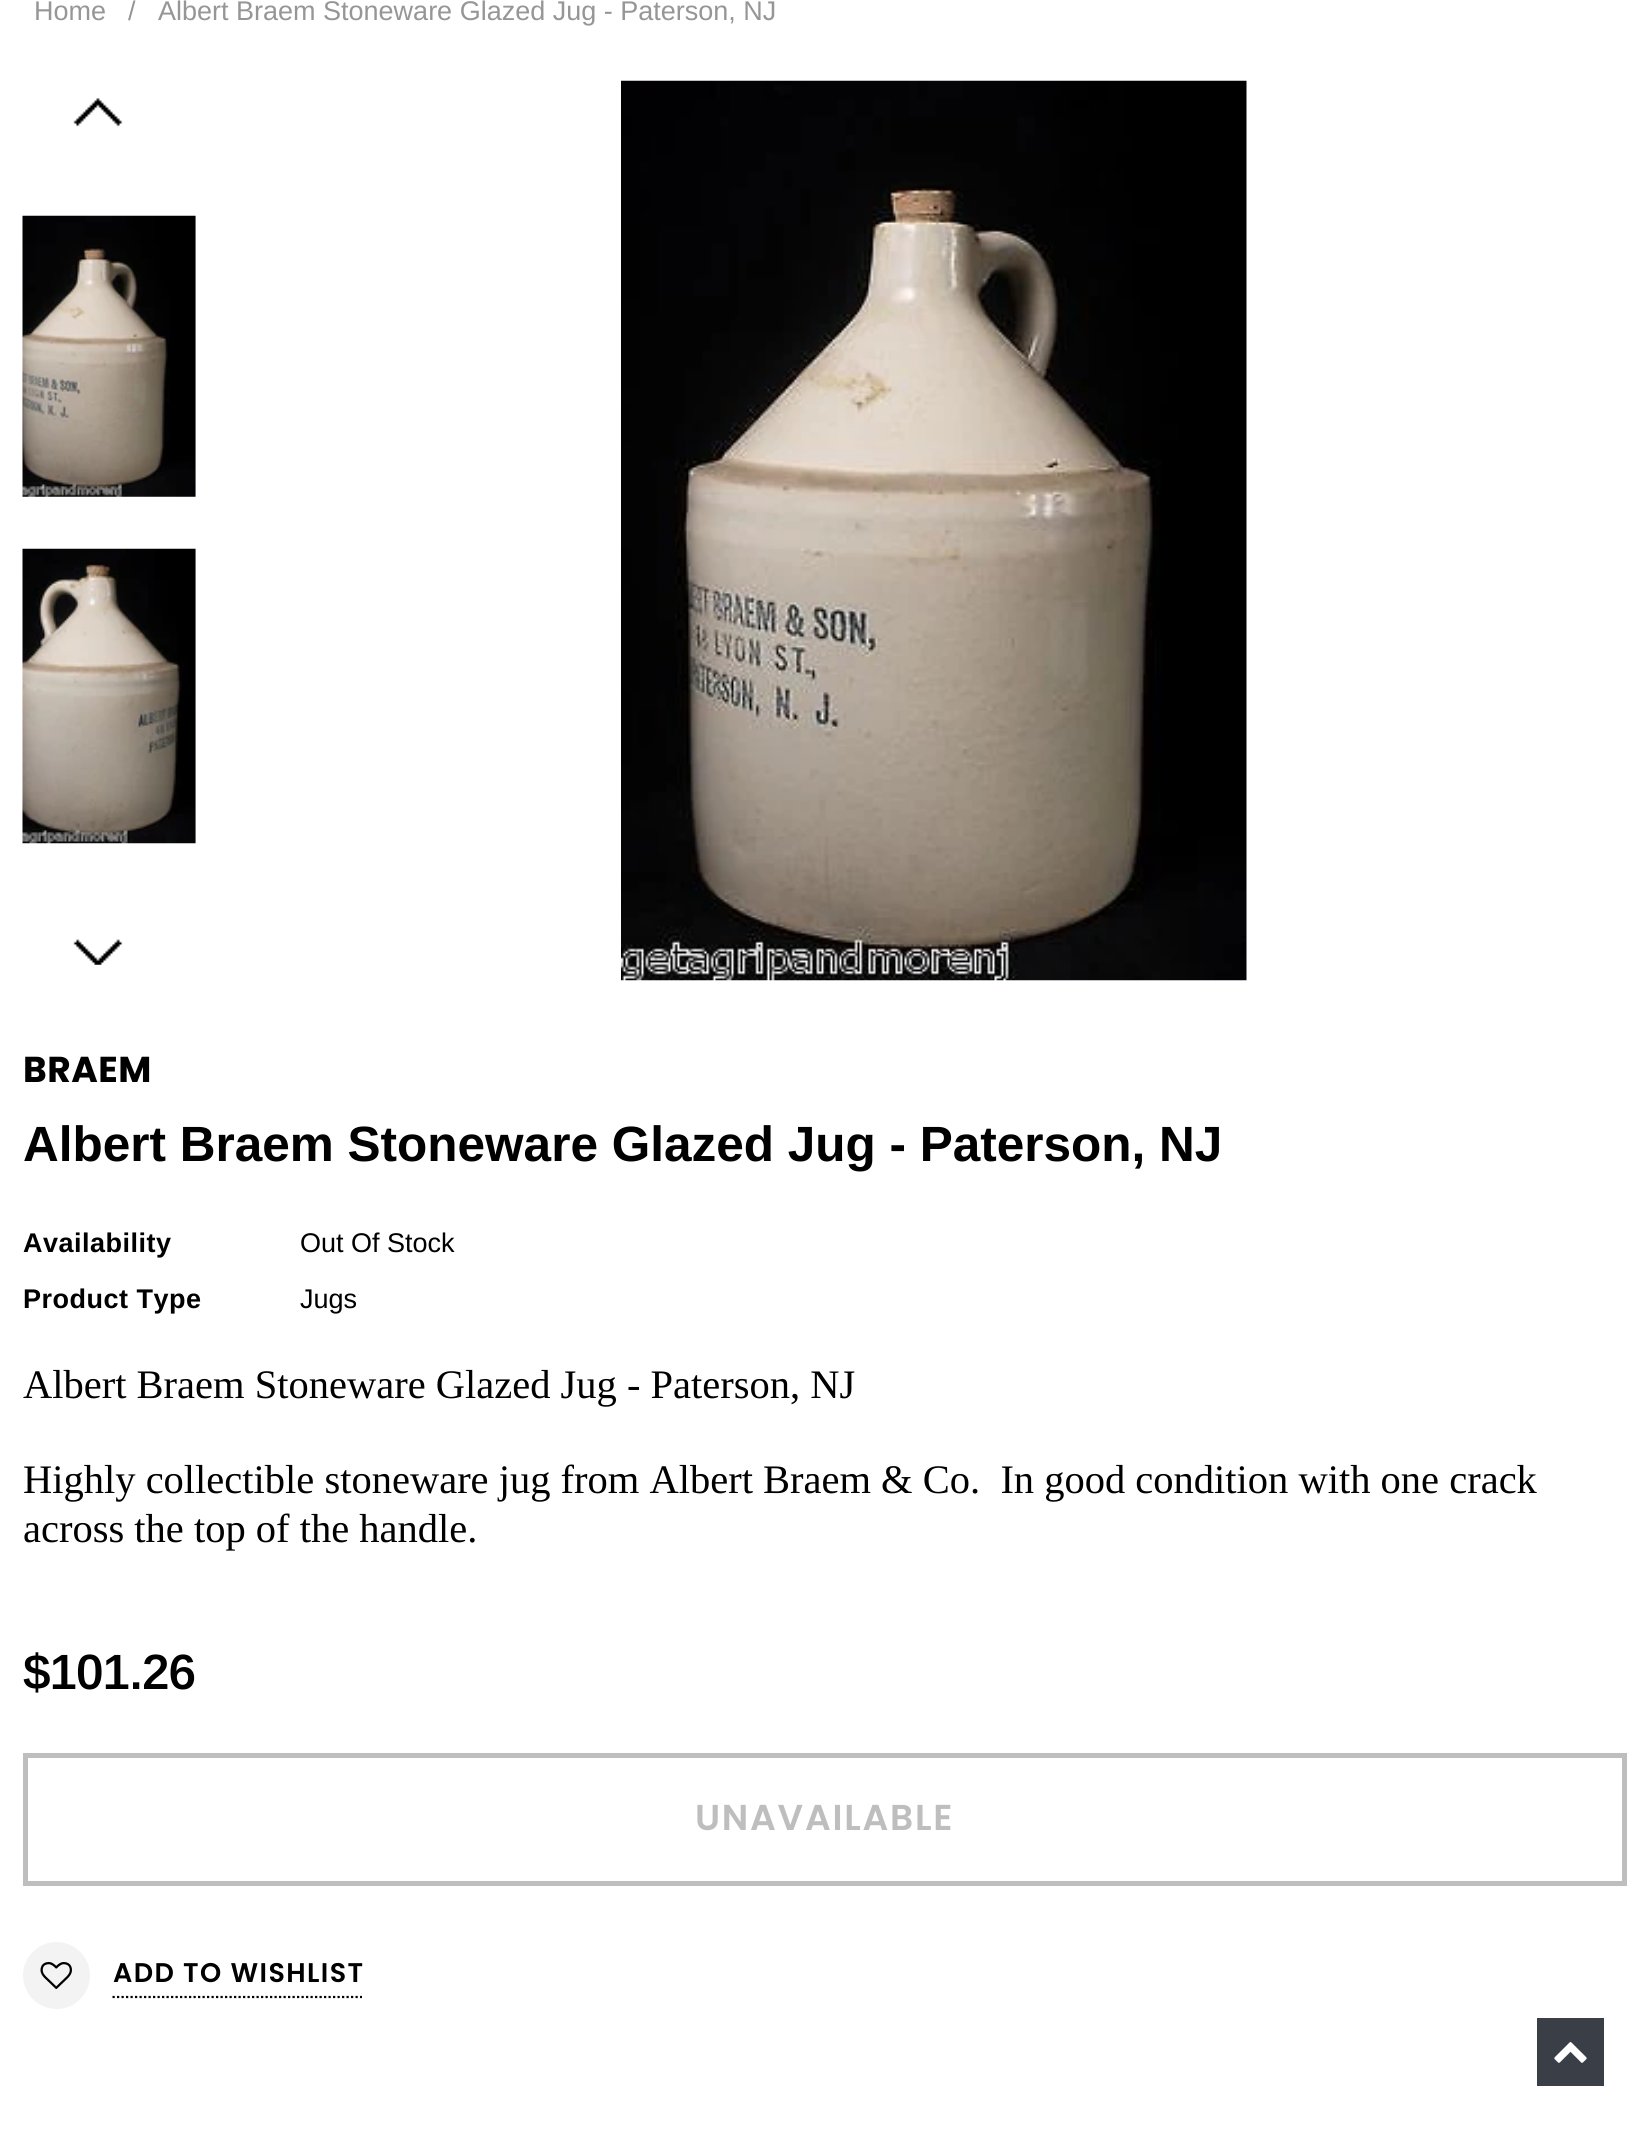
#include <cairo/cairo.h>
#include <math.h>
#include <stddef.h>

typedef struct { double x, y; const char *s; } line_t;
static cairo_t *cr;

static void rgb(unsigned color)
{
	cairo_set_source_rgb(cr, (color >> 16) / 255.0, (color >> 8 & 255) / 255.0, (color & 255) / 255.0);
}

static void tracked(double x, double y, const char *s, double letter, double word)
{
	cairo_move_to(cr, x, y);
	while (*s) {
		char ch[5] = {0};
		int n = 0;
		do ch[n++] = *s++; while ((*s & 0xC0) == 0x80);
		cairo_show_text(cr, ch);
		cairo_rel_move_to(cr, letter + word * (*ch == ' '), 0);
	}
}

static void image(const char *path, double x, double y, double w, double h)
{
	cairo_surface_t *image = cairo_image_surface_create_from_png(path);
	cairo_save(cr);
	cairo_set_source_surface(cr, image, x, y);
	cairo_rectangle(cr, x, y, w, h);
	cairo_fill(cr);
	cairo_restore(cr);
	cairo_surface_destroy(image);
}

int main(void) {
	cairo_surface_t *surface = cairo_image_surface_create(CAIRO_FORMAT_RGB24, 1649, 2129);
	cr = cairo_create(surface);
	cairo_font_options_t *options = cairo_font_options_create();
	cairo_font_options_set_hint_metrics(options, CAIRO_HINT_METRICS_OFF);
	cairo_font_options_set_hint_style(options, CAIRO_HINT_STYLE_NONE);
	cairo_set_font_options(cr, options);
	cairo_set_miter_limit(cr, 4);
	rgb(0xffffff);
	cairo_paint(cr);
	image("img/1.png", 73, 98, 50, 29);
	image("img/2.png", 22, 215, 174, 282);
	image("img/3.png", 22, 548, 174, 296);
	image("img/4.png", 73, 939, 50, 26);
	image("img/5.png", 621, 80, 626, 901);
	cairo_rectangle(cr, 25.5, 1755.5, 1599, 128);
	rgb(0xbebebe);
	cairo_set_line_width(cr, 5);
	cairo_stroke(cr);
	rgb(0xf3f3f3);
	cairo_arc(cr, 56.5, 1975.5, 33.5, 0, 2 * M_PI);
	cairo_fill(cr);
	image("img/6.png", 40, 1962, 32, 27);
	cairo_new_path(cr);
	cairo_move_to(cr, 112.5, 1997);
	cairo_line_to(cr, 362, 1997);
	rgb(0x000000);
	cairo_set_line_width(cr, 2.2);
	cairo_set_dash(cr, (double[]){2.25, 2.25}, 2, 0);
	cairo_stroke(cr);
	rgb(0x3a3e46);
	cairo_rectangle(cr, 1537, 2018, 67, 68);
	cairo_fill(cr);
	image("img/7.png", 1554, 2042, 33, 21);
	cairo_select_font_face(cr, "Arimo", CAIRO_FONT_SLANT_NORMAL, CAIRO_FONT_WEIGHT_NORMAL);
	cairo_set_font_size(cr, 27);
	rgb(0x969696);
	{
		static const line_t items[] = {
			{34, 20, "Home"},
			{128, 20, "/"},
			{158, 20, "Albert Braem Stoneware Glazed Jug - Paterson, NJ"},
		};
		for (size_t i = 0; i < sizeof items / sizeof *items; i++) {
			cairo_move_to(cr, items[i].x, items[i].y);
			cairo_show_text(cr, items[i].s);
		}
	}
	cairo_select_font_face(cr, "Poppins", CAIRO_FONT_SLANT_NORMAL, CAIRO_FONT_WEIGHT_BOLD);
	cairo_set_font_size(cr, 36);
	rgb(0x000000);
	tracked(23, 1082, "BRAEM", 0.5, 0);
	cairo_select_font_face(cr, "Arimo", CAIRO_FONT_SLANT_NORMAL, CAIRO_FONT_WEIGHT_BOLD);
	cairo_set_font_size(cr, 49.5);
	cairo_move_to(cr, 23, 1161);
	cairo_show_text(cr, "Albert Braem Stoneware Glazed Jug - Paterson, NJ");
	cairo_set_font_size(cr, 27);
	tracked(23, 1252, "Availability", 0.5, 0);
	cairo_select_font_face(cr, "Arimo", CAIRO_FONT_SLANT_NORMAL, CAIRO_FONT_WEIGHT_NORMAL);
	cairo_move_to(cr, 300, 1252);
	cairo_show_text(cr, "Out Of Stock");
	cairo_select_font_face(cr, "Arimo", CAIRO_FONT_SLANT_NORMAL, CAIRO_FONT_WEIGHT_BOLD);
	tracked(23, 1308, "Product Type", 0.5, 0);
	cairo_select_font_face(cr, "Arimo", CAIRO_FONT_SLANT_NORMAL, CAIRO_FONT_WEIGHT_NORMAL);
	cairo_move_to(cr, 300, 1308);
	cairo_show_text(cr, "Jugs");
	cairo_select_font_face(cr, "Liberation Serif", CAIRO_FONT_SLANT_NORMAL, CAIRO_FONT_WEIGHT_NORMAL);
	cairo_set_font_size(cr, 40.5);
	{
		static const line_t items[] = {
			{23, 1398, "Albert Braem Stoneware Glazed Jug - Paterson, NJ"},
			{23, 1493, "Highly collectible stoneware jug from Albert Braem & Co.  In good condition with one crack"},
			{23, 1542, "across the top of the handle."},
		};
		for (size_t i = 0; i < sizeof items / sizeof *items; i++) {
			cairo_move_to(cr, items[i].x, items[i].y);
			cairo_show_text(cr, items[i].s);
		}
	}
	cairo_select_font_face(cr, "Arimo SemiBold", CAIRO_FONT_SLANT_NORMAL, CAIRO_FONT_WEIGHT_NORMAL);
	cairo_set_font_size(cr, 49.5);
	tracked(23, 1689, "$101.26", -1, 0);
	cairo_select_font_face(cr, "Poppins SemiBold", CAIRO_FONT_SLANT_NORMAL, CAIRO_FONT_WEIGHT_NORMAL);
	cairo_set_font_size(cr, 36);
	rgb(0xbebebe);
	tracked(695, 1830, "UNAVAILABLE", 1.75, 0);
	cairo_set_font_size(cr, 27);
	rgb(0x000000);
	tracked(113, 1982, "ADD TO WISHLIST", 1.4, 0);
	cairo_surface_write_to_png(surface, "page.png");
	cairo_font_options_destroy(options);
	cairo_destroy(cr);
	cairo_surface_destroy(surface);
	return 0;
}
